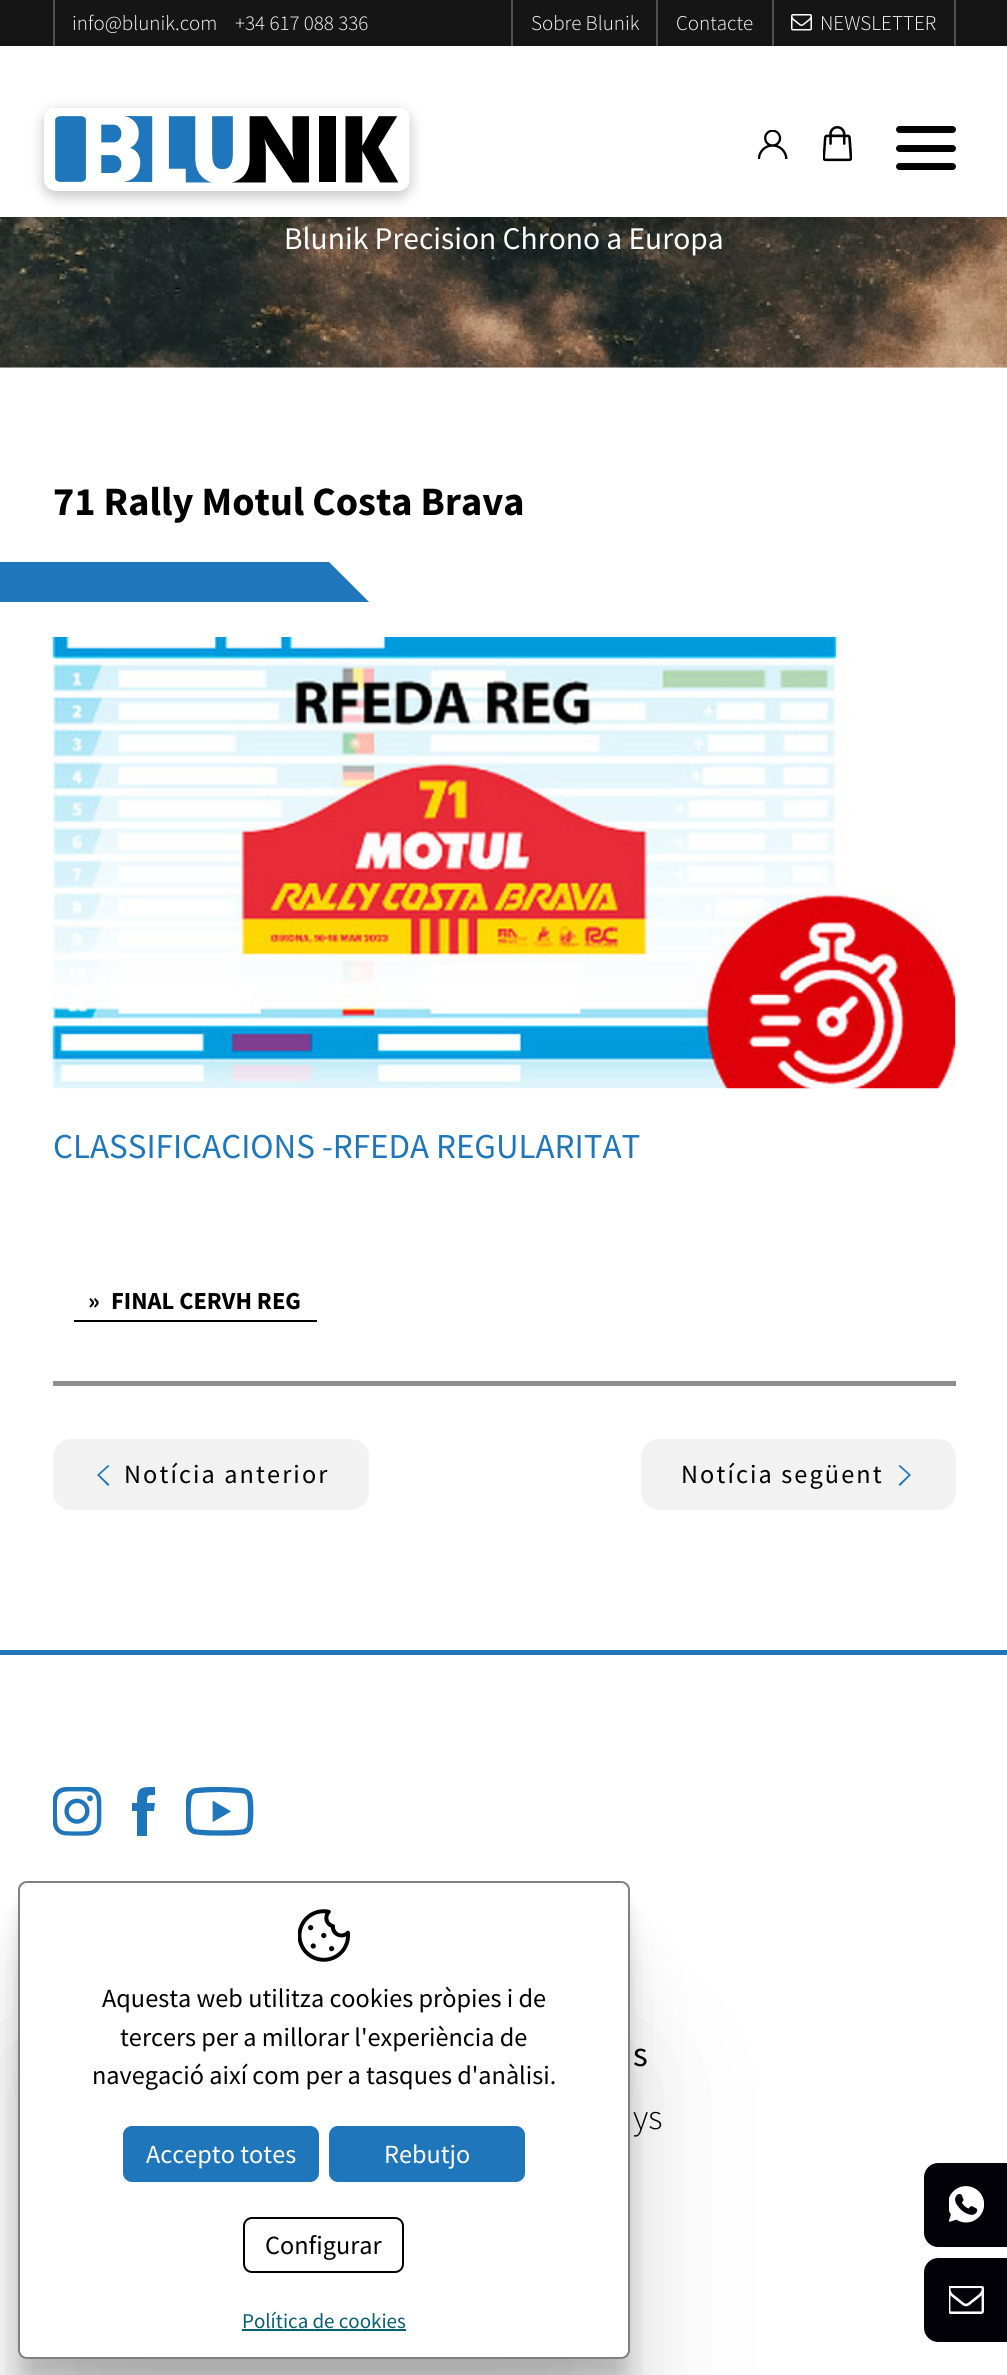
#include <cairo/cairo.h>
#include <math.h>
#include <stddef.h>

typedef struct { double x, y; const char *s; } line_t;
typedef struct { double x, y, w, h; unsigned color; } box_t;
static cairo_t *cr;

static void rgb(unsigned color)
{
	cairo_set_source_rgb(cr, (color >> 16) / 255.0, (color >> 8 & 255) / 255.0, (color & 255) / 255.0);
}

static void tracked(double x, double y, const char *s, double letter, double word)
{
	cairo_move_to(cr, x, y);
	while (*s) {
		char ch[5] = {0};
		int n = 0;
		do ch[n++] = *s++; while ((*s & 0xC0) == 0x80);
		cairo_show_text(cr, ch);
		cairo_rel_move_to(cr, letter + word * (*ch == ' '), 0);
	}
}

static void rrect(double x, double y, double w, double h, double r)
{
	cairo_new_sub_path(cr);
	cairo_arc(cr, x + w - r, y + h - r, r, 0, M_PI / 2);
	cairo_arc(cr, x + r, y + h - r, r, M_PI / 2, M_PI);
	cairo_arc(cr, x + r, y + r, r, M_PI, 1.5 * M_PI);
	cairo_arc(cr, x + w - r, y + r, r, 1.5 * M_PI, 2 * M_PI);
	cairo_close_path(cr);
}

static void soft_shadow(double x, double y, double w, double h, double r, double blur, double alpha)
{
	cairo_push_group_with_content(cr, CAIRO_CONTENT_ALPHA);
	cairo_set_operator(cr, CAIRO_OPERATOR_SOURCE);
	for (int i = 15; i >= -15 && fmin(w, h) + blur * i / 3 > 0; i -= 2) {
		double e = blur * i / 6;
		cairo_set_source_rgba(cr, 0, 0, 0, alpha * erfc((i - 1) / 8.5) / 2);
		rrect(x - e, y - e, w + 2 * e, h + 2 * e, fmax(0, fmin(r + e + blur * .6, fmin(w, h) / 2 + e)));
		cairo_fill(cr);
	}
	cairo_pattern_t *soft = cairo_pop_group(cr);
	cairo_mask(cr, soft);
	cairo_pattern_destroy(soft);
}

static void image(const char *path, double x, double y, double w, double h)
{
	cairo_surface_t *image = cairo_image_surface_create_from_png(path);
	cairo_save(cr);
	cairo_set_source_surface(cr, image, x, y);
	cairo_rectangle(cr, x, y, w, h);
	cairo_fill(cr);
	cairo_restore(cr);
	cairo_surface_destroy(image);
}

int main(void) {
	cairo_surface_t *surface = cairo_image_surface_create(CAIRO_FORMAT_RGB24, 1007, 2375);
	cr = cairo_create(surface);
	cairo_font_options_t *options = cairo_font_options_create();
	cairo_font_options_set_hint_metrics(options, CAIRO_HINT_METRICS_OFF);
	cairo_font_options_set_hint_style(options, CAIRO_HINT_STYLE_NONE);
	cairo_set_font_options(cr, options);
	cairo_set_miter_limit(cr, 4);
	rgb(0xffffff);
	cairo_paint(cr);
	rgb(0x151515);
	cairo_rectangle(cr, 0, 0, 1007, 46);
	cairo_fill(cr);
	rgb(0xf2f2f2);
	cairo_rectangle(cr, 0, 367, 1007, 1);
	cairo_fill(cr);
	image("img/5.png", 0, 217, 1007, 151);
	rgb(0x000000);
	soft_shadow(0, 51, 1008, 171, 0, 7, 0.24);
	{
		static const box_t items[] = {
			{53, 0, 2, 46, 0x505050},
			{511, 0, 2, 46, 0x505050},
			{656, 0, 2, 46, 0x505050},
			{954, 0, 2, 46, 0x505050},
			{772, 0, 2, 46, 0x505050},
		};
		for (size_t i = 0; i < sizeof items / sizeof *items; i++) {
			rgb(items[i].color);
			cairo_rectangle(cr, items[i].x, items[i].y, items[i].w, items[i].h);
			cairo_fill(cr);
		}
	}
	image("img/1.png", 791, 14, 21, 17);
	rgb(0xffffff);
	cairo_rectangle(cr, 0, 46, 1007, 171);
	cairo_fill(cr);
	rgb(0x000000);
	soft_shadow(44, 112, 366, 84, 12, 7, 0.24);
	image("img/2.png", 44, 108, 366, 83);
	image("img/3.png", 758, 130, 30, 29);
	image("img/4.png", 823, 126, 29, 36);
	rgb(0x000000);
	rrect(896, 126, 60, 7, 3.5);
	cairo_fill(cr);
	rrect(896, 145, 60, 7, 3.5);
	cairo_fill(cr);
	rrect(896, 163, 60, 7, 3.5);
	cairo_fill(cr);
	rgb(0x1f76ba);
	cairo_new_path(cr);
	cairo_move_to(cr, -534, 562);
	cairo_line_to(cr, -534, 602);
	cairo_line_to(cr, 369, 602);
	cairo_line_to(cr, 329, 562);
	cairo_close_path(cr);
	cairo_fill(cr);
	image("img/6.png", 52, 637, 904, 452);
	rgb(0x000000);
	cairo_rectangle(cr, 74, 1320, 243, 2);
	cairo_fill(cr);
	rgb(0x8e8e93);
	cairo_rectangle(cr, 53, 1381, 903, 5);
	cairo_fill(cr);
	rgb(0xf2f2f2);
	rrect(55, 1441, 312, 67, 16);
	cairo_fill_preserve(cr);
	cairo_set_line_width(cr, 4);
	cairo_stroke(cr);
	rgb(0x1f76ba);
	cairo_new_path(cr);
	cairo_move_to(cr, 109.5, 1466);
	cairo_line_to(cr, 108, 1465);
	cairo_line_to(cr, 97, 1475);
	cairo_line_to(cr, 108, 1486);
	cairo_line_to(cr, 109.5, 1484.5);
	cairo_line_to(cr, 99.5, 1475);
	cairo_close_path(cr);
	cairo_fill(cr);
	rgb(0xf2f2f2);
	rrect(643, 1441, 311, 67, 16);
	cairo_fill_preserve(cr);
	cairo_stroke(cr);
	rgb(0x1f76ba);
	cairo_new_path(cr);
	cairo_move_to(cr, 898.5, 1466);
	cairo_line_to(cr, 900, 1465);
	cairo_line_to(cr, 911, 1475);
	cairo_line_to(cr, 900, 1486);
	cairo_line_to(cr, 898.5, 1484.5);
	cairo_line_to(cr, 908.5, 1475);
	cairo_close_path(cr);
	cairo_fill(cr);
	rgb(0x000000);
	soft_shadow(18, 2056, 612, 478, 9, 70, 0.12);
	soft_shadow(18, 1955, 612, 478, 9, 29, 0.09);
	soft_shadow(18, 1920, 612, 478, 9, 15.5, 0.07);
	soft_shadow(18, 1904, 612, 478, 9, 9, 0.06);
	soft_shadow(18, 1894, 612, 477, 9, 4.5, 0.05);
	rgb(0xffffff);
	rrect(19, 1882, 610, 476, 8);
	cairo_fill_preserve(cr);
	rgb(0x808080);
	cairo_set_line_width(cr, 2);
	cairo_stroke(cr);
	image("img/7.png", 298, 1909, 52, 53);
	rgb(0x1f76ba);
	rrect(124, 2127, 194, 54, 8);
	cairo_fill_preserve(cr);
	cairo_stroke(cr);
	rrect(330, 2127, 194, 54, 8);
	cairo_fill_preserve(cr);
	cairo_stroke(cr);
	rrect(244, 2218, 159, 54, 8);
	rgb(0x000000);
	cairo_stroke(cr);
	rgb(0x075f72);
	cairo_rectangle(cr, 242, 2329, 164, 2);
	cairo_fill(cr);
	rgb(0x1f76ba);
	cairo_rectangle(cr, 0, 1650, 1007, 5);
	cairo_fill(cr);
	image("img/8.png", 53, 1787, 49, 49);
	cairo_new_path(cr);
	cairo_move_to(cr, 147, 1803);
	cairo_curve_to(cr, 147, 1795, 147, 1795, 155, 1795);
	cairo_line_to(cr, 155, 1787);
	cairo_curve_to(cr, 140, 1787, 137, 1787, 137, 1803);
	cairo_line_to(cr, 132, 1803);
	cairo_line_to(cr, 132, 1811);
	cairo_line_to(cr, 137, 1811);
	cairo_line_to(cr, 137, 1836);
	cairo_line_to(cr, 147, 1836);
	cairo_line_to(cr, 147, 1811);
	cairo_line_to(cr, 154, 1811);
	cairo_line_to(cr, 155, 1803);
	cairo_close_path(cr);
	cairo_fill(cr);
	image("img/9.png", 186, 1787, 68, 49);
	rgb(0x030208);
	cairo_new_path(cr);
	cairo_move_to(cr, 938, 2163);
	cairo_line_to(cr, 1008, 2163);
	cairo_line_to(cr, 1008, 2247);
	cairo_line_to(cr, 938, 2247);
	cairo_curve_to(cr, 930.5, 2247, 924, 2240.5, 924, 2233);
	cairo_line_to(cr, 924, 2177);
	cairo_curve_to(cr, 924, 2169.5, 930.5, 2163, 938, 2163);
	cairo_close_path(cr);
	cairo_fill(cr);
	image("img/10.png", 949, 2186, 35, 37);
	cairo_new_path(cr);
	cairo_move_to(cr, 938, 2258);
	cairo_line_to(cr, 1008, 2258);
	cairo_line_to(cr, 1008, 2342);
	cairo_line_to(cr, 938, 2342);
	cairo_curve_to(cr, 930.5, 2342, 924, 2335.5, 924, 2328);
	cairo_line_to(cr, 924, 2272);
	cairo_curve_to(cr, 924, 2264.5, 930.5, 2258, 938, 2258);
	cairo_close_path(cr);
	cairo_fill(cr);
	image("img/11.png", 949, 2286, 35, 28);
	cairo_select_font_face(cr, "Source Sans Pro Light", CAIRO_FONT_SLANT_NORMAL, CAIRO_FONT_WEIGHT_NORMAL);
	cairo_set_font_size(cr, 21);
	rgb(0xffffff);
	{
		static const line_t items[] = {
			{72, 30, "info@blunik.com"},
			{235, 30, "+34 617 088 336"},
			{531, 30, "Sobre Blunik"},
			{676, 30, "Contacte"},
			{820, 30, "NEWSLETTER"},
		};
		for (size_t i = 0; i < sizeof items / sizeof *items; i++) {
			cairo_move_to(cr, items[i].x, items[i].y);
			cairo_show_text(cr, items[i].s);
		}
	}
	cairo_select_font_face(cr, "Source Sans Pro", CAIRO_FONT_SLANT_NORMAL, CAIRO_FONT_WEIGHT_NORMAL);
	cairo_set_font_size(cr, 31.5);
	cairo_move_to(cr, 284, 249);
	cairo_show_text(cr, "Blunik Precision Chrono a Europa");
	cairo_select_font_face(cr, "Source Sans Pro", CAIRO_FONT_SLANT_NORMAL, CAIRO_FONT_WEIGHT_BOLD);
	cairo_set_font_size(cr, 40.25);
	rgb(0x000000);
	cairo_move_to(cr, 53, 515);
	cairo_show_text(cr, "71 Rally Motul Costa Brava");
	cairo_select_font_face(cr, "Source Sans Pro", CAIRO_FONT_SLANT_NORMAL, CAIRO_FONT_WEIGHT_NORMAL);
	cairo_set_font_size(cr, 35);
	rgb(0x1f76ba);
	cairo_move_to(cr, 53, 1158);
	cairo_show_text(cr, "CLASSIFICACIONS -RFEDA REGULARITAT");
	cairo_select_font_face(cr, "Source Sans Pro", CAIRO_FONT_SLANT_NORMAL, CAIRO_FONT_WEIGHT_BOLD);
	cairo_set_font_size(cr, 24.5);
	rgb(0x000000);
	cairo_move_to(cr, 88, 1309);
	cairo_show_text(cr, "»");
	cairo_move_to(cr, 111, 1309);
	cairo_show_text(cr, "FINAL CERVH REG");
	cairo_select_font_face(cr, "Source Sans Pro", CAIRO_FONT_SLANT_NORMAL, CAIRO_FONT_WEIGHT_NORMAL);
	cairo_set_font_size(cr, 26.25);
	tracked(124, 1483, "Notícia anterior", 2.1, 0);
	tracked(681, 1483, "Notícia següent", 2.1, 0);
	{
		static const line_t items[] = {
			{102, 2007, "Aquesta web utilitza cookies pròpies i de"},
			{120, 2046, "tercers per a millorar l'experiència de"},
			{92, 2084, "navegació així com per a tasques d'anàlisi."},
		};
		for (size_t i = 0; i < sizeof items / sizeof *items; i++) {
			cairo_move_to(cr, items[i].x, items[i].y);
			cairo_show_text(cr, items[i].s);
		}
	}
	rgb(0xffffff);
	cairo_move_to(cr, 146, 2163);
	cairo_show_text(cr, "Accepto totes");
	cairo_move_to(cr, 384, 2163);
	cairo_show_text(cr, "Rebutjo");
	rgb(0x000000);
	cairo_move_to(cr, 265, 2254);
	cairo_show_text(cr, "Configurar");
	cairo_set_font_size(cr, 21);
	rgb(0x075f72);
	cairo_move_to(cr, 242, 2328);
	cairo_show_text(cr, "Política de cookies");
	cairo_set_font_size(cr, 35);
	rgb(0x000000);
	cairo_move_to(cr, 633, 2066);
	cairo_show_text(cr, "s");
	cairo_select_font_face(cr, "Source Sans Pro Light", CAIRO_FONT_SLANT_NORMAL, CAIRO_FONT_WEIGHT_NORMAL);
	cairo_move_to(cr, 633, 2129);
	cairo_show_text(cr, "ys");
	cairo_surface_write_to_png(surface, "page.png");
	cairo_font_options_destroy(options);
	cairo_destroy(cr);
	cairo_surface_destroy(surface);
	return 0;
}
